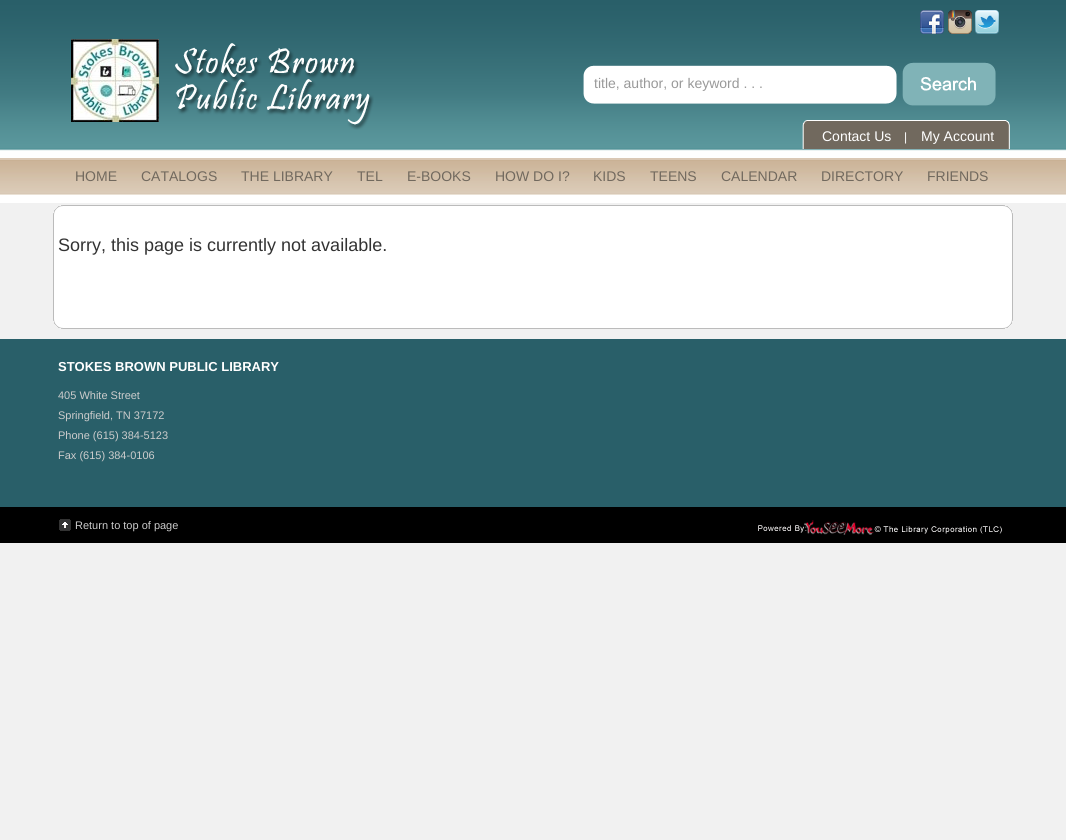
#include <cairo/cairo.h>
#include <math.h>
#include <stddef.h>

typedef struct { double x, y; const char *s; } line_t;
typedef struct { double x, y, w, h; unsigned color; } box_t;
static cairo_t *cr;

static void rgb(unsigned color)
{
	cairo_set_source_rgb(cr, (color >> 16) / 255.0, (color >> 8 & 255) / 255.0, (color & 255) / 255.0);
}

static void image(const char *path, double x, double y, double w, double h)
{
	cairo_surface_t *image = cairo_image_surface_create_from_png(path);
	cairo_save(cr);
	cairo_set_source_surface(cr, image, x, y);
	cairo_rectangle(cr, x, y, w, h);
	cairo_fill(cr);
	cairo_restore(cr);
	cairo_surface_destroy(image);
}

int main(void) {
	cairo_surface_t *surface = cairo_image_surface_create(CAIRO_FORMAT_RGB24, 1066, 840);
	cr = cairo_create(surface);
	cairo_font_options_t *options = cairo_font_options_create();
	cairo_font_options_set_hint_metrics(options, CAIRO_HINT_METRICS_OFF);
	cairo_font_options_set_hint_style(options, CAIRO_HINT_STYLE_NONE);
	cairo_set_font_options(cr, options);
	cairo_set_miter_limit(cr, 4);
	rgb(0xf1f1f1);
	cairo_paint(cr);
	image("img/1.png", 0, 0, 1066, 203);
	image("img/2.png", 71, 39, 303, 91);
	image("img/3.png", 920, 10, 24, 24);
	image("img/4.png", 948, 10, 24, 24);
	image("img/5.png", 975, 10, 24, 24);
	image("img/6.png", 583, 65, 314, 39);
	image("img/7.png", 902, 62, 94, 44);
	image("img/8.png", 802, 120, 208, 29);
	image("img/9.png", 53, 205, 960, 14);
	{
		static const box_t items[] = {
			{54, 219, 958, 96, 0xffffff},
			{1012, 219, 1, 96, 0xbbbbbb},
			{53, 219, 1, 96, 0xbbbbbb},
		};
		for (size_t i = 0; i < sizeof items / sizeof *items; i++) {
			rgb(items[i].color);
			cairo_rectangle(cr, items[i].x, items[i].y, items[i].w, items[i].h);
			cairo_fill(cr);
		}
	}
	image("img/10.png", 53, 315, 960, 14);
	rgb(0x295f69);
	cairo_rectangle(cr, 0, 339, 1066, 168);
	cairo_fill(cr);
	rgb(0x000000);
	cairo_rectangle(cr, 0, 507, 1066, 36);
	cairo_fill(cr);
	image("img/11.png", 59, 519, 12, 12);
	image("img/12.png", 758, 520, 244, 15);
	cairo_select_font_face(cr, "Liberation Sans", CAIRO_FONT_SLANT_NORMAL, CAIRO_FONT_WEIGHT_NORMAL);
	cairo_set_font_size(cr, 14);
	rgb(0x999999);
	cairo_move_to(cr, 594, 88);
	cairo_show_text(cr, "title, author, or keyword . . .");
	rgb(0xffffff);
	cairo_move_to(cr, 822, 141);
	cairo_show_text(cr, "Contact Us");
	cairo_set_font_size(cr, 12);
	cairo_move_to(cr, 904, 141);
	cairo_show_text(cr, "|");
	cairo_set_font_size(cr, 14);
	cairo_move_to(cr, 921, 141);
	cairo_show_text(cr, "My Account");
	rgb(0x71695e);
	{
		static const line_t items[] = {
			{75, 181, "HOME"},
			{141, 181, "CATALOGS"},
			{241, 181, "THE LIBRARY"},
			{357, 181, "TEL"},
			{407, 181, "E-BOOKS"},
			{495, 181, "HOW DO I?"},
			{593, 181, "KIDS"},
			{650, 181, "TEENS"},
			{721, 181, "CALENDAR"},
			{821, 181, "DIRECTORY"},
			{927, 181, "FRIENDS"},
		};
		for (size_t i = 0; i < sizeof items / sizeof *items; i++) {
			cairo_move_to(cr, items[i].x, items[i].y);
			cairo_show_text(cr, items[i].s);
		}
	}
	cairo_set_font_size(cr, 18);
	rgb(0x333333);
	cairo_move_to(cr, 58, 251);
	cairo_show_text(cr, "Sorry, this page is currently not available.");
	cairo_select_font_face(cr, "Liberation Sans", CAIRO_FONT_SLANT_NORMAL, CAIRO_FONT_WEIGHT_BOLD);
	cairo_set_font_size(cr, 13);
	rgb(0xffffff);
	cairo_move_to(cr, 58, 371);
	cairo_show_text(cr, "STOKES BROWN PUBLIC LIBRARY");
	cairo_select_font_face(cr, "Liberation Sans", CAIRO_FONT_SLANT_NORMAL, CAIRO_FONT_WEIGHT_NORMAL);
	cairo_set_font_size(cr, 11);
	rgb(0xcccccc);
	{
		static const line_t items[] = {
			{58, 399, "405 White Street"},
			{58, 419, "Springfield, TN 37172"},
			{58, 439, "Phone (615) 384-5123"},
			{58, 459, "Fax (615) 384-0106"},
			{75, 529, "Return to top of page"},
		};
		for (size_t i = 0; i < sizeof items / sizeof *items; i++) {
			cairo_move_to(cr, items[i].x, items[i].y);
			cairo_show_text(cr, items[i].s);
		}
	}
	cairo_surface_write_to_png(surface, "page.png");
	cairo_font_options_destroy(options);
	cairo_destroy(cr);
	cairo_surface_destroy(surface);
	return 0;
}
